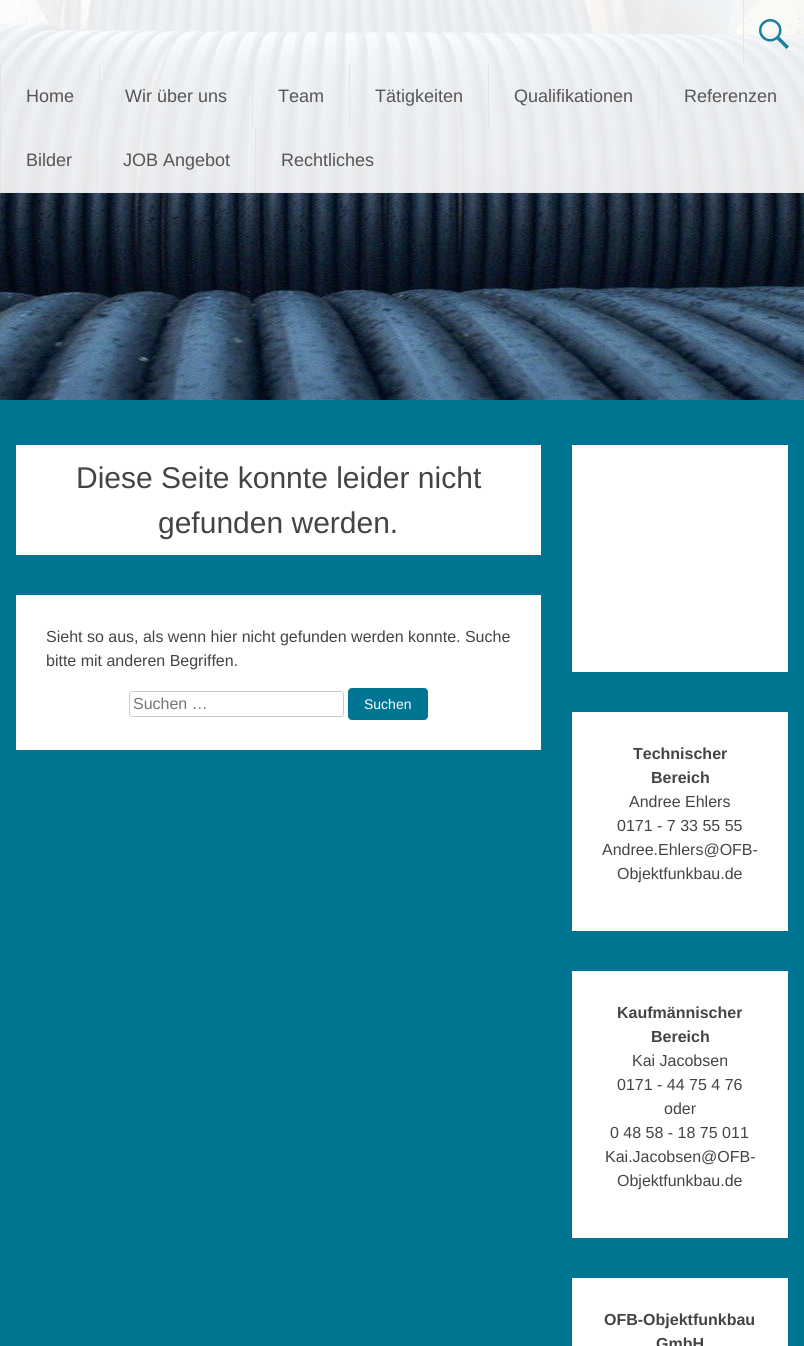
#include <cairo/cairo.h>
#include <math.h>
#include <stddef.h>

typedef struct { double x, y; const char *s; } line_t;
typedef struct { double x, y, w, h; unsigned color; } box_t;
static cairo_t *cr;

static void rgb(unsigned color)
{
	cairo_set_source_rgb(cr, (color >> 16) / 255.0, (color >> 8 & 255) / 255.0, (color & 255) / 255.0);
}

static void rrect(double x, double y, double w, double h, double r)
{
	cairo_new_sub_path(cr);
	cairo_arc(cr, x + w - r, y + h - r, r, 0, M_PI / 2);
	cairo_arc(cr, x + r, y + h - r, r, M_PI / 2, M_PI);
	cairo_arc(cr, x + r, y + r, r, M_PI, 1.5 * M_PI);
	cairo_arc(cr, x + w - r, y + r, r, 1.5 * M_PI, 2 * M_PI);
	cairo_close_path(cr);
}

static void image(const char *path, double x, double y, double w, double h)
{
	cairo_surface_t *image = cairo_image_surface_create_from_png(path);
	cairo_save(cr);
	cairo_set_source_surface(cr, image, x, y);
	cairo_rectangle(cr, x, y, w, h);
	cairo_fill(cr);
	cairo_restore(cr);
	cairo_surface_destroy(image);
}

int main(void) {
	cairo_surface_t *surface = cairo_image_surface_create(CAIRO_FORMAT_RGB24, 804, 1346);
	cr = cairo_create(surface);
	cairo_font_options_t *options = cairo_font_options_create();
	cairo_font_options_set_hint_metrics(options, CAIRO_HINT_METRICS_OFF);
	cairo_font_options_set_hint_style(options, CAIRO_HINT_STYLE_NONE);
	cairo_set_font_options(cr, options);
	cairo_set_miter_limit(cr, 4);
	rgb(0xffffff);
	cairo_paint(cr);
	image("img/1.png", 0, 0, 804, 400);
	cairo_set_source_rgba(cr, 1, 1, 1, 0.9);
	cairo_rectangle(cr, 0, 0, 804, 193);
	cairo_fill(cr);
	cairo_set_source_rgba(cr, 0.882, 0.894, 0.902, 0.9);
	cairo_rectangle(cr, 0, 192, 804, 1);
	cairo_fill(cr);
	cairo_rectangle(cr, 743, 0, 1, 64);
	cairo_fill(cr);
	image("img/2.png", 759, 19, 30, 30);
	cairo_rectangle(cr, 0, 64, 1, 64);
	cairo_fill(cr);
	cairo_rectangle(cr, 99, 64, 1, 64);
	cairo_fill(cr);
	cairo_rectangle(cr, 252, 64, 1, 64);
	cairo_fill(cr);
	cairo_rectangle(cr, 349, 64, 1, 64);
	cairo_fill(cr);
	cairo_rectangle(cr, 488, 64, 1, 64);
	cairo_fill(cr);
	cairo_rectangle(cr, 658, 64, 1, 64);
	cairo_fill(cr);
	cairo_rectangle(cr, 0, 128, 1, 64);
	cairo_fill(cr);
	cairo_rectangle(cr, 97, 128, 1, 64);
	cairo_fill(cr);
	cairo_rectangle(cr, 255, 128, 1, 64);
	cairo_fill(cr);
	rgb(0x007593);
	cairo_rectangle(cr, 0, 400, 804, 946);
	cairo_fill(cr);
	rgb(0xffffff);
	cairo_rectangle(cr, 16, 445, 525, 110);
	cairo_fill(cr);
	cairo_rectangle(cr, 16, 595, 525, 155);
	cairo_fill(cr);
	rrect(129.5, 691.5, 214, 25, 2.5);
	rgb(0xcccccc);
	cairo_set_line_width(cr, 1);
	cairo_stroke(cr);
	rgb(0x007593);
	rrect(348, 688, 80, 32, 4);
	cairo_fill(cr);
	{
		static const box_t items[] = {
			{572, 445, 216, 227, 0xffffff},
			{572, 712, 216, 219, 0xffffff},
			{572, 971, 216, 267, 0xffffff},
			{572, 1278, 216, 68, 0xffffff},
		};
		for (size_t i = 0; i < sizeof items / sizeof *items; i++) {
			rgb(items[i].color);
			cairo_rectangle(cr, items[i].x, items[i].y, items[i].w, items[i].h);
			cairo_fill(cr);
		}
	}
	cairo_select_font_face(cr, "Liberation Sans", CAIRO_FONT_SLANT_NORMAL, CAIRO_FONT_WEIGHT_NORMAL);
	cairo_set_font_size(cr, 18);
	rgb(0x555555);
	{
		static const line_t items[] = {
			{26, 102, "Home"},
			{125, 102, "Wir über uns"},
			{278, 102, "Team"},
			{375, 102, "Tätigkeiten"},
			{514, 102, "Qualifikationen"},
			{684, 102, "Referenzen"},
			{26, 166, "Bilder"},
			{123, 166, "JOB Angebot"},
			{281, 166, "Rechtliches"},
		};
		for (size_t i = 0; i < sizeof items / sizeof *items; i++) {
			cairo_move_to(cr, items[i].x, items[i].y);
			cairo_show_text(cr, items[i].s);
		}
	}
	cairo_set_font_size(cr, 30);
	rgb(0x444444);
	cairo_move_to(cr, 76, 488);
	cairo_show_text(cr, "Diese Seite konnte leider nicht");
	cairo_move_to(cr, 158, 533);
	cairo_show_text(cr, "gefunden werden.");
	cairo_set_font_size(cr, 16);
	cairo_move_to(cr, 46, 642);
	cairo_show_text(cr, "Sieht so aus, als wenn hier nicht gefunden werden konnte. Suche");
	cairo_move_to(cr, 46, 666);
	cairo_show_text(cr, "bitte mit anderen Begriffen.");
	rgb(0x757575);
	cairo_move_to(cr, 133, 709);
	cairo_show_text(cr, "Suchen …");
	cairo_set_font_size(cr, 14);
	rgb(0xffffff);
	cairo_move_to(cr, 364, 709);
	cairo_show_text(cr, "Suchen");
	cairo_select_font_face(cr, "Liberation Sans", CAIRO_FONT_SLANT_NORMAL, CAIRO_FONT_WEIGHT_BOLD);
	cairo_set_font_size(cr, 16);
	rgb(0x444444);
	cairo_move_to(cr, 633, 759);
	cairo_show_text(cr, "Technischer");
	cairo_move_to(cr, 651, 783);
	cairo_show_text(cr, "Bereich");
	cairo_select_font_face(cr, "Liberation Sans", CAIRO_FONT_SLANT_NORMAL, CAIRO_FONT_WEIGHT_NORMAL);
	{
		static const line_t items[] = {
			{629, 807, "Andree Ehlers"},
			{617, 831, "0171 - 7 33 55 55"},
			{602, 855, "Andree.Ehlers@OFB-"},
			{617, 879, "Objektfunkbau.de"},
		};
		for (size_t i = 0; i < sizeof items / sizeof *items; i++) {
			cairo_move_to(cr, items[i].x, items[i].y);
			cairo_show_text(cr, items[i].s);
		}
	}
	cairo_select_font_face(cr, "Liberation Sans", CAIRO_FONT_SLANT_NORMAL, CAIRO_FONT_WEIGHT_BOLD);
	cairo_move_to(cr, 617, 1018);
	cairo_show_text(cr, "Kaufmännischer");
	cairo_move_to(cr, 651, 1042);
	cairo_show_text(cr, "Bereich");
	cairo_select_font_face(cr, "Liberation Sans", CAIRO_FONT_SLANT_NORMAL, CAIRO_FONT_WEIGHT_NORMAL);
	{
		static const line_t items[] = {
			{632, 1066, "Kai Jacobsen"},
			{617, 1090, "0171 - 44 75 4 76"},
			{664, 1114, "oder"},
			{610, 1138, "0 48 58 - 18 75 011"},
			{605, 1162, "Kai.Jacobsen@OFB-"},
			{617, 1186, "Objektfunkbau.de"},
		};
		for (size_t i = 0; i < sizeof items / sizeof *items; i++) {
			cairo_move_to(cr, items[i].x, items[i].y);
			cairo_show_text(cr, items[i].s);
		}
	}
	cairo_select_font_face(cr, "Liberation Sans", CAIRO_FONT_SLANT_NORMAL, CAIRO_FONT_WEIGHT_BOLD);
	cairo_move_to(cr, 604, 1325);
	cairo_show_text(cr, "OFB-Objektfunkbau");
	cairo_move_to(cr, 656, 1349);
	cairo_show_text(cr, "GmbH");
	cairo_surface_write_to_png(surface, "page.png");
	cairo_font_options_destroy(options);
	cairo_destroy(cr);
	cairo_surface_destroy(surface);
	return 0;
}
